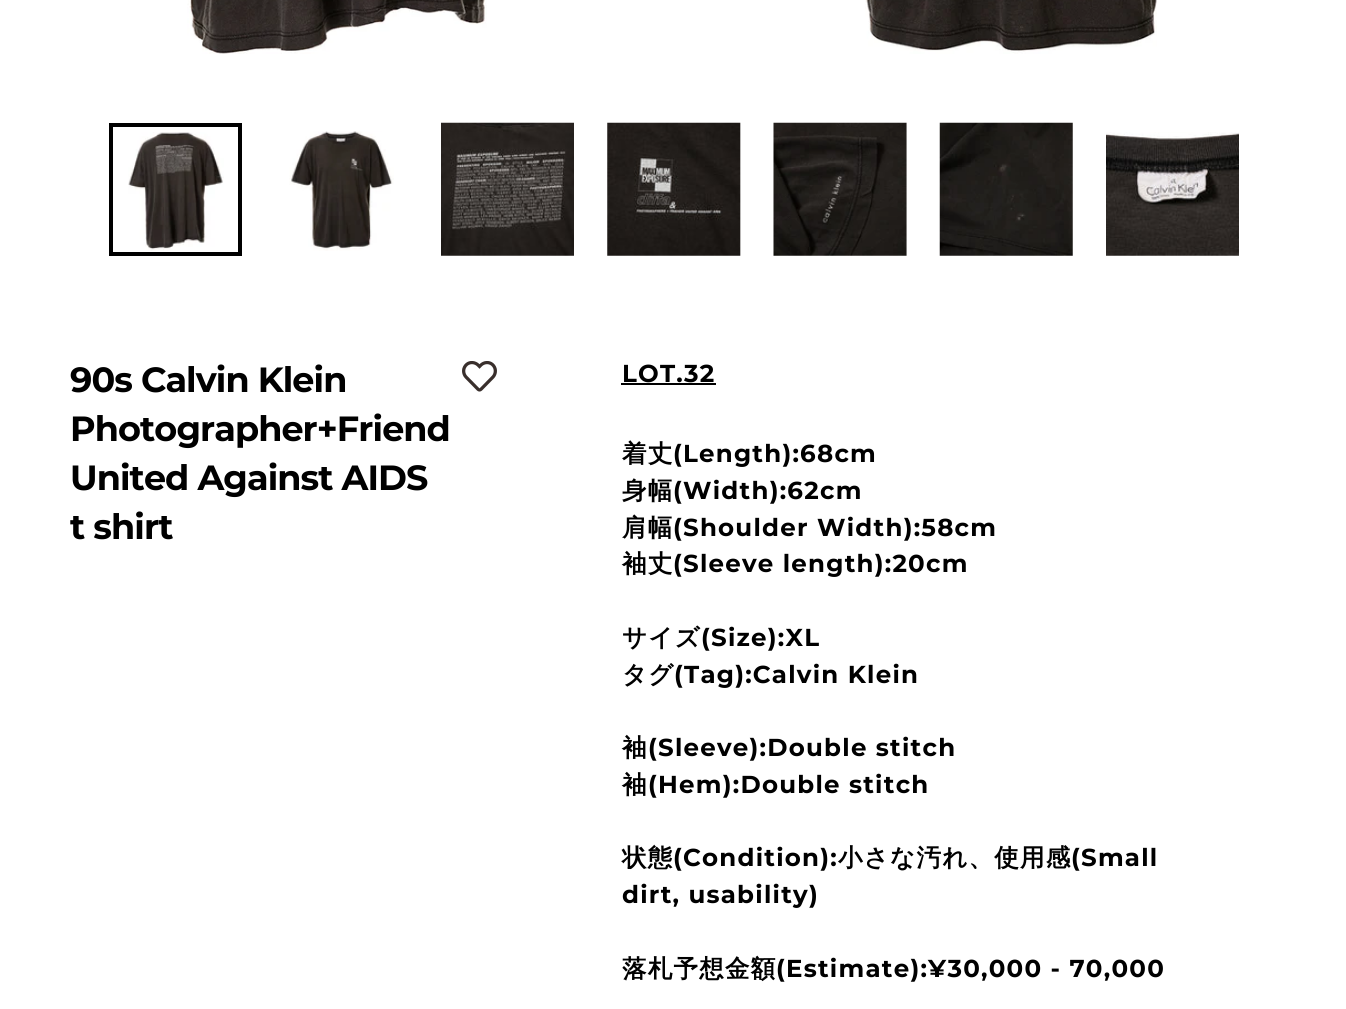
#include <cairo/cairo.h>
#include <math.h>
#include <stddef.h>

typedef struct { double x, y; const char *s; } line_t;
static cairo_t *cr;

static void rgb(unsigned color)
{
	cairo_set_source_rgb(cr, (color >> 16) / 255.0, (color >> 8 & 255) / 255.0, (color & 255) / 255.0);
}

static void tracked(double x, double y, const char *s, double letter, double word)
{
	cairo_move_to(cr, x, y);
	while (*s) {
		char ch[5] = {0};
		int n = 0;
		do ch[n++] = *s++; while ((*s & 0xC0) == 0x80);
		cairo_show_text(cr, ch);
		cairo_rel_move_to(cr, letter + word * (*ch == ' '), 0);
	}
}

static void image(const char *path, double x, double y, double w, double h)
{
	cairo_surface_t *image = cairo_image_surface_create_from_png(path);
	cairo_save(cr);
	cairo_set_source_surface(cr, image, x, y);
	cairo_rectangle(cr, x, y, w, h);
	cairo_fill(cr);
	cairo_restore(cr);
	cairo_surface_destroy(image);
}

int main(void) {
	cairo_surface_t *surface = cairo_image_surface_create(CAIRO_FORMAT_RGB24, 1346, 1009);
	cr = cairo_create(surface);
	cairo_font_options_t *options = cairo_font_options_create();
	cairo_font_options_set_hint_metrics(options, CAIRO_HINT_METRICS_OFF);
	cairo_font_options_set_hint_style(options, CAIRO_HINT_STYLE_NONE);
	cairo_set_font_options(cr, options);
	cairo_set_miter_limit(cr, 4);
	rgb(0xffffff);
	cairo_paint(cr);
	image("img/1.png", 187, 0, 300, 54);
	image("img/2.png", 865, 0, 292, 54);
	image("img/3.png", 128, 132, 96, 119);
	cairo_rectangle(cr, 111, 125, 129, 129);
	rgb(0x000000);
	cairo_set_line_width(cr, 4);
	cairo_stroke(cr);
	image("img/4.png", 289, 131, 105, 120);
	image("img/5.png", 441, 122, 133, 134);
	image("img/6.png", 607, 122, 134, 134);
	image("img/7.png", 773, 122, 134, 134);
	image("img/8.png", 939, 122, 134, 134);
	image("img/9.png", 1106, 132, 133, 124);
	image("img/10.png", 462, 361, 35, 31);
	cairo_rectangle(cr, 621, 383, 95, 2);
	cairo_fill(cr);
	cairo_select_font_face(cr, "Montserrat", CAIRO_FONT_SLANT_NORMAL, CAIRO_FONT_WEIGHT_BOLD);
	cairo_set_font_size(cr, 35);
	{
		static const line_t items[] = {
			{70, 392, "90s Calvin Klein"},
			{70, 441, "Photographer+Friend"},
			{70, 490, "United Against AIDS"},
			{70, 539, "t shirt"},
		};
		for (size_t i = 0; i < sizeof items / sizeof *items; i++) {
			tracked(items[i].x, items[i].y, items[i].s, -0.9, 0);
		}
	}
	cairo_set_font_size(cr, 24.5);
	tracked(622, 382, "LOT.32", 1.25, 0);
	cairo_select_font_face(cr, "WenQuanYi Zen Hei", CAIRO_FONT_SLANT_NORMAL, CAIRO_FONT_WEIGHT_BOLD);
	tracked(622, 462, "着丈", 1.25, 0);
	cairo_select_font_face(cr, "Montserrat", CAIRO_FONT_SLANT_NORMAL, CAIRO_FONT_WEIGHT_BOLD);
	tracked(673, 462, "(Length):68cm", 1.25, 0);
	cairo_select_font_face(cr, "WenQuanYi Zen Hei", CAIRO_FONT_SLANT_NORMAL, CAIRO_FONT_WEIGHT_BOLD);
	tracked(622, 499, "身幅", 1.25, 0);
	cairo_select_font_face(cr, "Montserrat", CAIRO_FONT_SLANT_NORMAL, CAIRO_FONT_WEIGHT_BOLD);
	tracked(673, 499, "(Width):62cm", 1.25, 0);
	cairo_select_font_face(cr, "WenQuanYi Zen Hei", CAIRO_FONT_SLANT_NORMAL, CAIRO_FONT_WEIGHT_BOLD);
	tracked(622, 536, "肩幅", 1.25, 0);
	cairo_select_font_face(cr, "Montserrat", CAIRO_FONT_SLANT_NORMAL, CAIRO_FONT_WEIGHT_BOLD);
	tracked(673, 536, "(Shoulder Width):58cm", 1.25, 0);
	cairo_select_font_face(cr, "WenQuanYi Zen Hei", CAIRO_FONT_SLANT_NORMAL, CAIRO_FONT_WEIGHT_BOLD);
	tracked(622, 572, "袖丈", 1.25, 0);
	cairo_select_font_face(cr, "Montserrat", CAIRO_FONT_SLANT_NORMAL, CAIRO_FONT_WEIGHT_BOLD);
	tracked(673, 572, "(Sleeve length):20cm", 1.25, 0);
	cairo_select_font_face(cr, "WenQuanYi Zen Hei", CAIRO_FONT_SLANT_NORMAL, CAIRO_FONT_WEIGHT_BOLD);
	tracked(622, 646, "サイズ", 1.25, 0);
	cairo_select_font_face(cr, "Montserrat", CAIRO_FONT_SLANT_NORMAL, CAIRO_FONT_WEIGHT_BOLD);
	tracked(701, 646, "(Size):XL", 1.25, 0);
	cairo_select_font_face(cr, "WenQuanYi Zen Hei", CAIRO_FONT_SLANT_NORMAL, CAIRO_FONT_WEIGHT_BOLD);
	tracked(622, 683, "タグ", 1.25, 0);
	cairo_select_font_face(cr, "Montserrat", CAIRO_FONT_SLANT_NORMAL, CAIRO_FONT_WEIGHT_BOLD);
	tracked(674, 683, "(Tag):Calvin Klein", 1.25, 0);
	cairo_select_font_face(cr, "WenQuanYi Zen Hei", CAIRO_FONT_SLANT_NORMAL, CAIRO_FONT_WEIGHT_BOLD);
	tracked(622, 756, "袖", 1.25, 0);
	cairo_select_font_face(cr, "Montserrat", CAIRO_FONT_SLANT_NORMAL, CAIRO_FONT_WEIGHT_BOLD);
	tracked(648, 756, "(Sleeve):Double stitch", 1.25, 0);
	cairo_select_font_face(cr, "WenQuanYi Zen Hei", CAIRO_FONT_SLANT_NORMAL, CAIRO_FONT_WEIGHT_BOLD);
	tracked(622, 793, "袖", 1.25, 0);
	cairo_select_font_face(cr, "Montserrat", CAIRO_FONT_SLANT_NORMAL, CAIRO_FONT_WEIGHT_BOLD);
	tracked(648, 793, "(Hem):Double stitch", 1.25, 0);
	cairo_select_font_face(cr, "WenQuanYi Zen Hei", CAIRO_FONT_SLANT_NORMAL, CAIRO_FONT_WEIGHT_BOLD);
	tracked(622, 866, "状態", 1.25, 0);
	cairo_select_font_face(cr, "Montserrat", CAIRO_FONT_SLANT_NORMAL, CAIRO_FONT_WEIGHT_BOLD);
	tracked(673, 866, "(Condition):", 1.25, 0);
	cairo_select_font_face(cr, "WenQuanYi Zen Hei", CAIRO_FONT_SLANT_NORMAL, CAIRO_FONT_WEIGHT_BOLD);
	tracked(838, 866, "小さな汚れ、使用感", 1.25, 0);
	cairo_select_font_face(cr, "Montserrat", CAIRO_FONT_SLANT_NORMAL, CAIRO_FONT_WEIGHT_BOLD);
	tracked(1071, 866, "(Small", 1.25, 0);
	tracked(622, 903, "dirt, usability)", 1.25, 0);
	cairo_select_font_face(cr, "WenQuanYi Zen Hei", CAIRO_FONT_SLANT_NORMAL, CAIRO_FONT_WEIGHT_BOLD);
	tracked(622, 977, "落札予想金額", 1.25, 0);
	cairo_select_font_face(cr, "Montserrat", CAIRO_FONT_SLANT_NORMAL, CAIRO_FONT_WEIGHT_BOLD);
	tracked(776, 977, "(Estimate):¥30,000 - 70,000", 1.25, 0);
	cairo_surface_write_to_png(surface, "page.png");
	cairo_font_options_destroy(options);
	cairo_destroy(cr);
	cairo_surface_destroy(surface);
	return 0;
}
